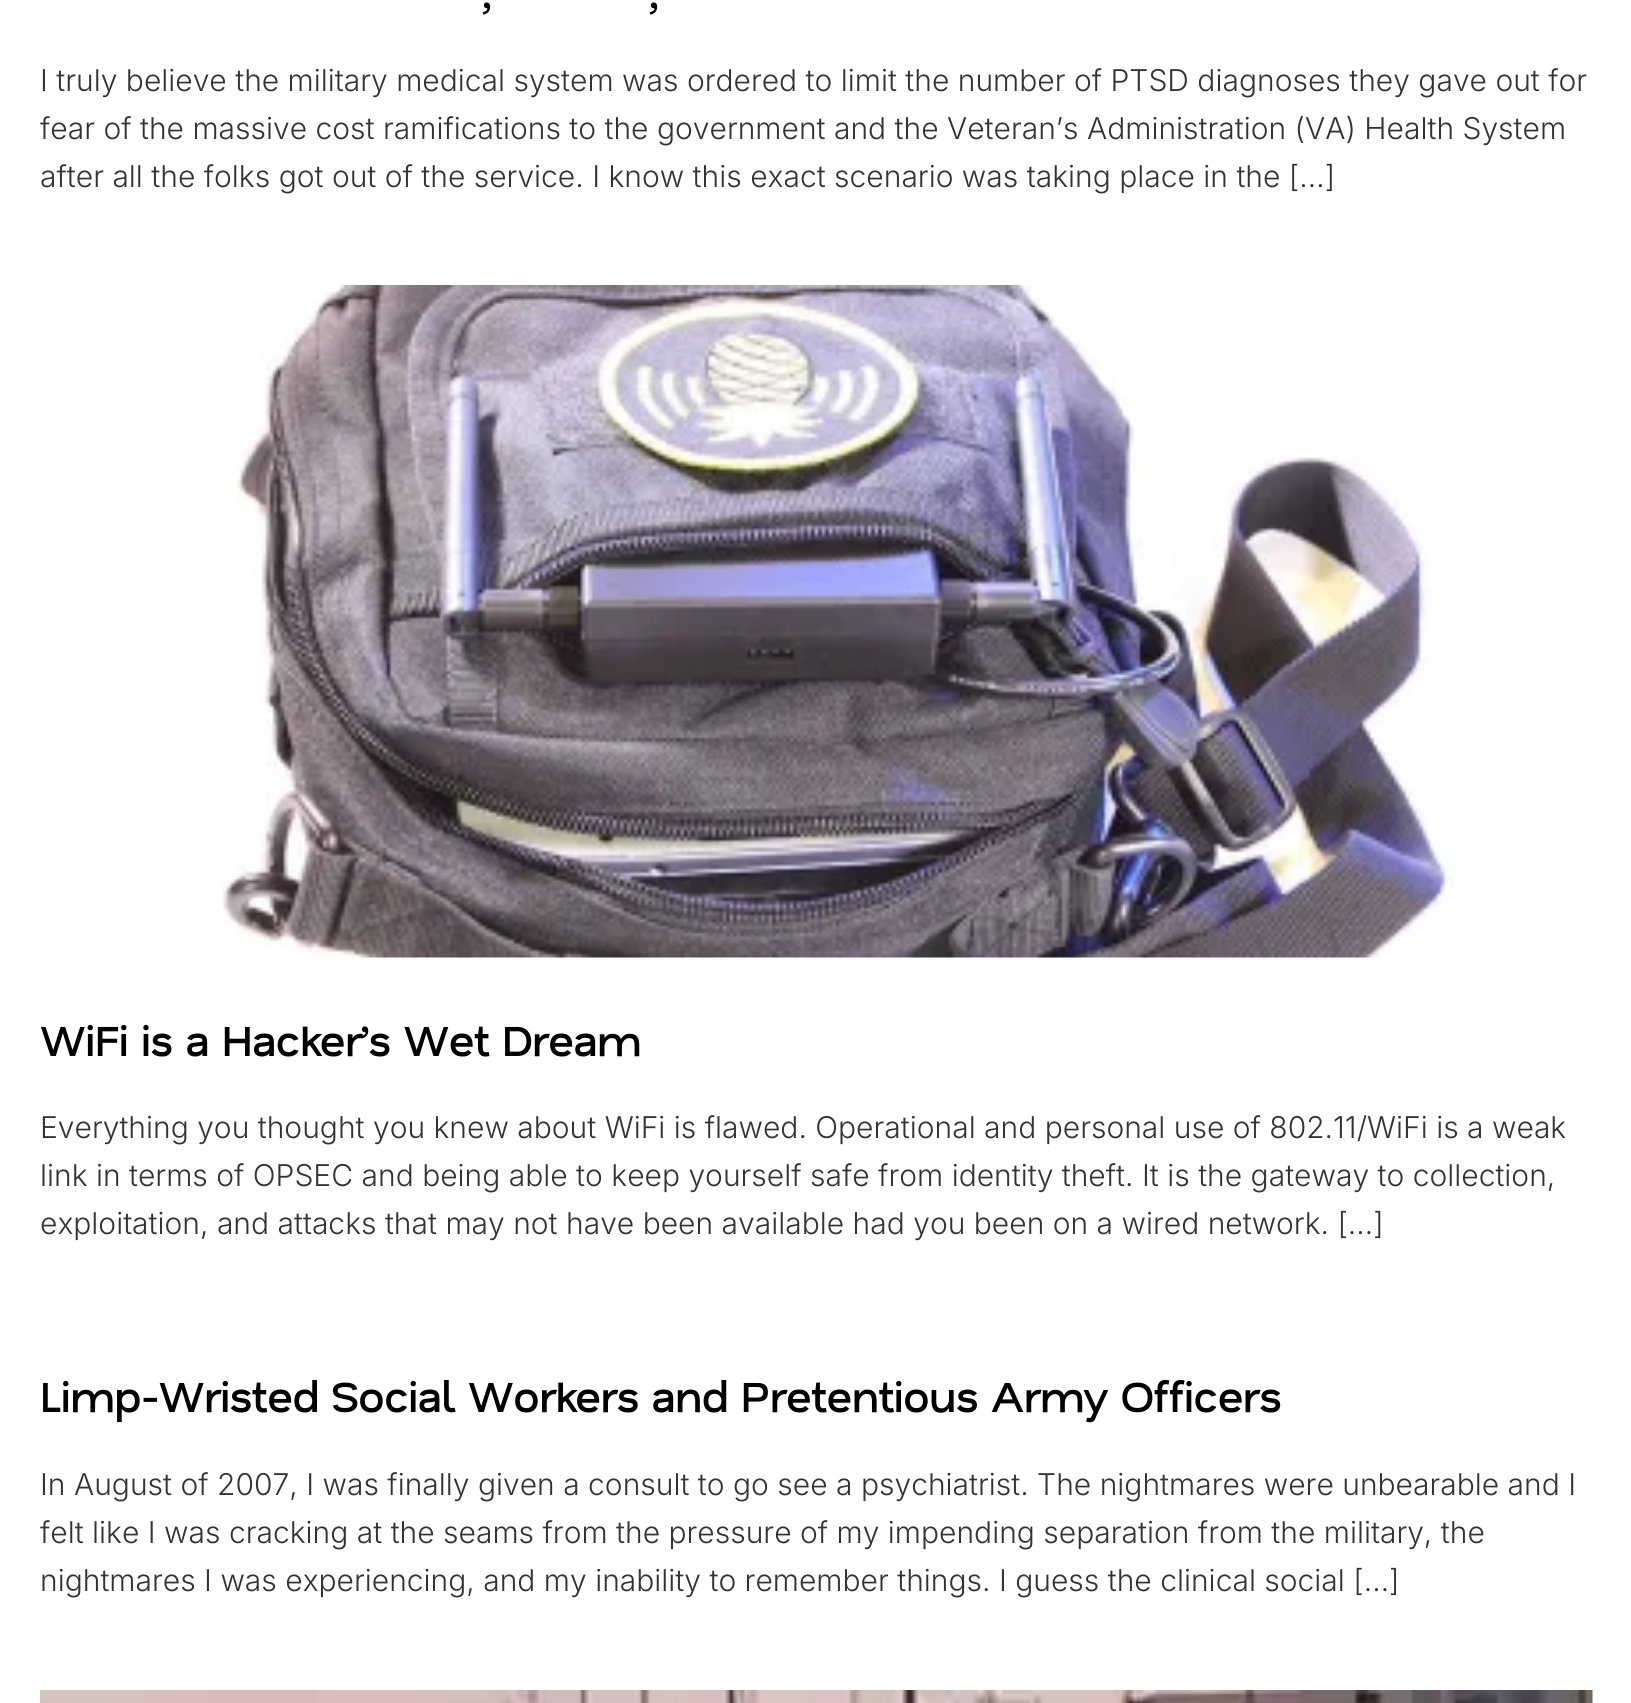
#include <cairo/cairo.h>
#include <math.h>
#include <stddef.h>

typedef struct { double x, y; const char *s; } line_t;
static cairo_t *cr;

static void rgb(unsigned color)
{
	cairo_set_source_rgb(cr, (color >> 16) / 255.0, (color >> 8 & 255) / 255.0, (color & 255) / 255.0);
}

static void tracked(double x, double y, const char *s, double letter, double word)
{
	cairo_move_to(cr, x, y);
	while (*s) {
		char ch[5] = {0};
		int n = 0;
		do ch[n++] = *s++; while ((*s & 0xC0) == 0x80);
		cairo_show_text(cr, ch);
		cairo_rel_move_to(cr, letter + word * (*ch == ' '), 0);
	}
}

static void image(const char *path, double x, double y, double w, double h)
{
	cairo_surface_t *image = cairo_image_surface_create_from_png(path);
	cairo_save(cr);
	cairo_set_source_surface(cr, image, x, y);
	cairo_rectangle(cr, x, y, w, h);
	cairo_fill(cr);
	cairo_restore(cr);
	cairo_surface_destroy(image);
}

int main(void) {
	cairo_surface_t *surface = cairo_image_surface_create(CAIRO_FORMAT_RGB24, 1631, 1703);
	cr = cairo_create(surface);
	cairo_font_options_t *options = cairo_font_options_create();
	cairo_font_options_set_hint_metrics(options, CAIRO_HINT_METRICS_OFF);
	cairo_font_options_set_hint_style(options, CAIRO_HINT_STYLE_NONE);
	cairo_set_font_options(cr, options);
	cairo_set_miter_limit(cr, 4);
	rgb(0xffffff);
	cairo_paint(cr);
	image("img/1.png", 222, 285, 1232, 673);
	image("img/2.png", 40, 1690, 1553, 13);
	cairo_select_font_face(cr, "Nata Sans SemiBold", CAIRO_FONT_SLANT_NORMAL, CAIRO_FONT_WEIGHT_NORMAL);
	cairo_set_font_size(cr, 44);
	rgb(0x000000);
	tracked(482, 8, ",", -0.45, 0);
	tracked(649, 8, ",", -0.45, 0);
	cairo_select_font_face(cr, "Inter Light", CAIRO_FONT_SLANT_NORMAL, CAIRO_FONT_WEIGHT_NORMAL);
	cairo_set_font_size(cr, 30);
	rgb(0x333333);
	{
		static const line_t items[] = {
			{40, 91, "I truly believe the military medical system was ordered to limit the number of PTSD diagnoses they gave out for"},
			{40, 139, "fear of the massive cost ramifications to the government and the Veteran’s Administration (VA) Health System"},
			{40, 187, "after all the folks got out of the service. I know this exact scenario was taking place in the […]"},
		};
		for (size_t i = 0; i < sizeof items / sizeof *items; i++) {
			cairo_move_to(cr, items[i].x, items[i].y);
			cairo_show_text(cr, items[i].s);
		}
	}
	cairo_select_font_face(cr, "Nata Sans SemiBold", CAIRO_FONT_SLANT_NORMAL, CAIRO_FONT_WEIGHT_NORMAL);
	cairo_set_font_size(cr, 44);
	rgb(0x000000);
	tracked(40, 1056, "WiFi is a Hacker’s Wet Dream", -0.45, 0);
	cairo_select_font_face(cr, "Inter Light", CAIRO_FONT_SLANT_NORMAL, CAIRO_FONT_WEIGHT_NORMAL);
	cairo_set_font_size(cr, 30);
	rgb(0x333333);
	{
		static const line_t items[] = {
			{40, 1138, "Everything you thought you knew about WiFi is flawed. Operational and personal use of 802.11/WiFi is a weak"},
			{40, 1186, "link in terms of OPSEC and being able to keep yourself safe from identity theft. It is the gateway to collection,"},
			{40, 1234, "exploitation, and attacks that may not have been available had you been on a wired network. […]"},
		};
		for (size_t i = 0; i < sizeof items / sizeof *items; i++) {
			cairo_move_to(cr, items[i].x, items[i].y);
			cairo_show_text(cr, items[i].s);
		}
	}
	cairo_select_font_face(cr, "Nata Sans SemiBold", CAIRO_FONT_SLANT_NORMAL, CAIRO_FONT_WEIGHT_NORMAL);
	cairo_set_font_size(cr, 44);
	rgb(0x000000);
	tracked(40, 1412, "Limp-Wristed Social Workers and Pretentious Army Officers", -0.45, 0);
	cairo_select_font_face(cr, "Inter Light", CAIRO_FONT_SLANT_NORMAL, CAIRO_FONT_WEIGHT_NORMAL);
	cairo_set_font_size(cr, 30);
	rgb(0x333333);
	{
		static const line_t items[] = {
			{40, 1495, "In August of 2007, I was finally given a consult to go see a psychiatrist. The nightmares were unbearable and I"},
			{40, 1543, "felt like I was cracking at the seams from the pressure of my impending separation from the military, the"},
			{40, 1591, "nightmares I was experiencing, and my inability to remember things. I guess the clinical social […]"},
		};
		for (size_t i = 0; i < sizeof items / sizeof *items; i++) {
			cairo_move_to(cr, items[i].x, items[i].y);
			cairo_show_text(cr, items[i].s);
		}
	}
	cairo_surface_write_to_png(surface, "page.png");
	cairo_font_options_destroy(options);
	cairo_destroy(cr);
	cairo_surface_destroy(surface);
	return 0;
}
